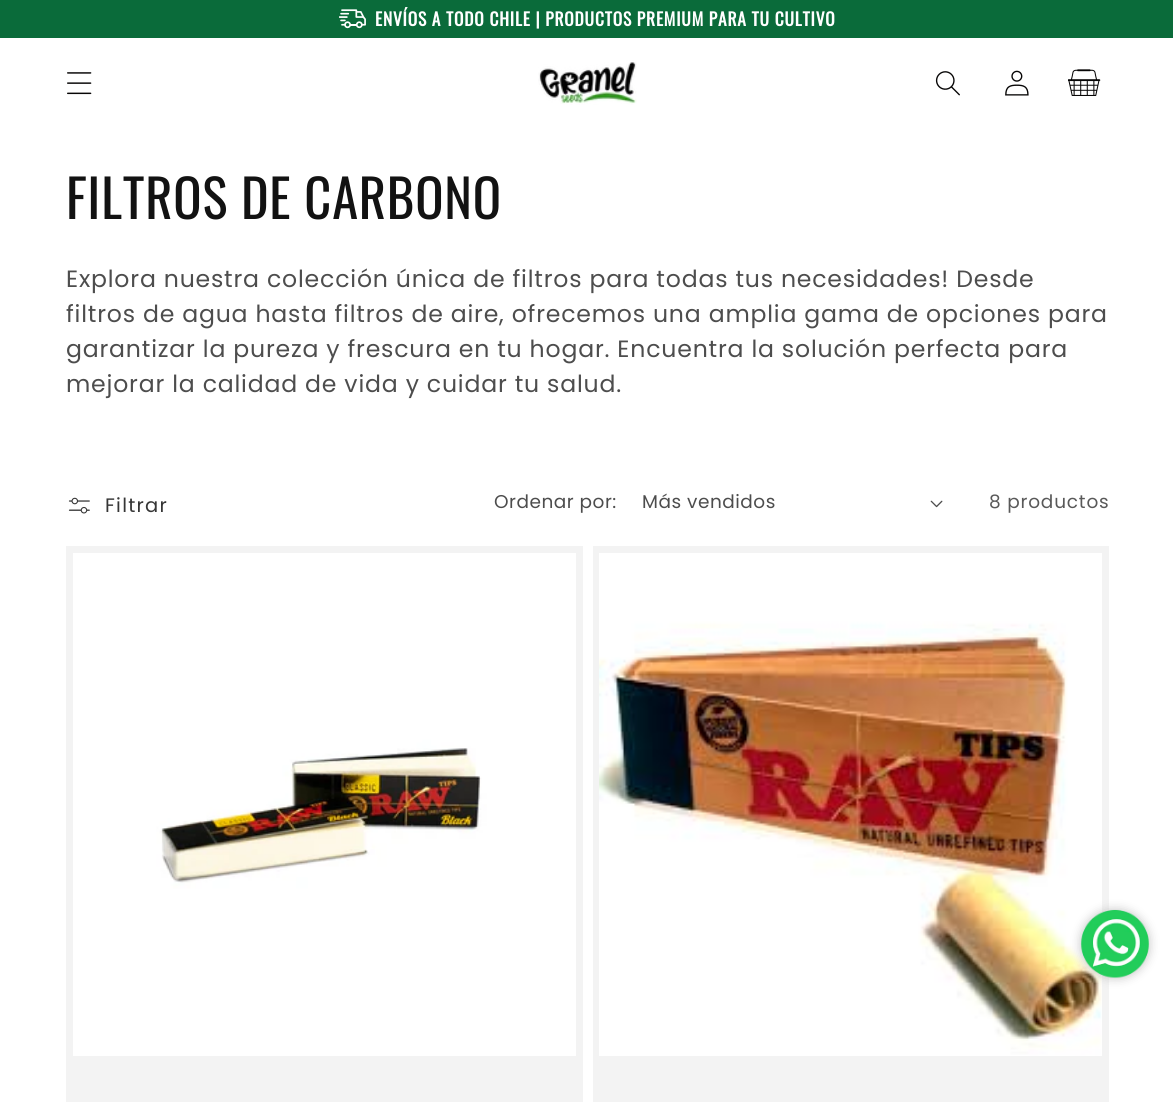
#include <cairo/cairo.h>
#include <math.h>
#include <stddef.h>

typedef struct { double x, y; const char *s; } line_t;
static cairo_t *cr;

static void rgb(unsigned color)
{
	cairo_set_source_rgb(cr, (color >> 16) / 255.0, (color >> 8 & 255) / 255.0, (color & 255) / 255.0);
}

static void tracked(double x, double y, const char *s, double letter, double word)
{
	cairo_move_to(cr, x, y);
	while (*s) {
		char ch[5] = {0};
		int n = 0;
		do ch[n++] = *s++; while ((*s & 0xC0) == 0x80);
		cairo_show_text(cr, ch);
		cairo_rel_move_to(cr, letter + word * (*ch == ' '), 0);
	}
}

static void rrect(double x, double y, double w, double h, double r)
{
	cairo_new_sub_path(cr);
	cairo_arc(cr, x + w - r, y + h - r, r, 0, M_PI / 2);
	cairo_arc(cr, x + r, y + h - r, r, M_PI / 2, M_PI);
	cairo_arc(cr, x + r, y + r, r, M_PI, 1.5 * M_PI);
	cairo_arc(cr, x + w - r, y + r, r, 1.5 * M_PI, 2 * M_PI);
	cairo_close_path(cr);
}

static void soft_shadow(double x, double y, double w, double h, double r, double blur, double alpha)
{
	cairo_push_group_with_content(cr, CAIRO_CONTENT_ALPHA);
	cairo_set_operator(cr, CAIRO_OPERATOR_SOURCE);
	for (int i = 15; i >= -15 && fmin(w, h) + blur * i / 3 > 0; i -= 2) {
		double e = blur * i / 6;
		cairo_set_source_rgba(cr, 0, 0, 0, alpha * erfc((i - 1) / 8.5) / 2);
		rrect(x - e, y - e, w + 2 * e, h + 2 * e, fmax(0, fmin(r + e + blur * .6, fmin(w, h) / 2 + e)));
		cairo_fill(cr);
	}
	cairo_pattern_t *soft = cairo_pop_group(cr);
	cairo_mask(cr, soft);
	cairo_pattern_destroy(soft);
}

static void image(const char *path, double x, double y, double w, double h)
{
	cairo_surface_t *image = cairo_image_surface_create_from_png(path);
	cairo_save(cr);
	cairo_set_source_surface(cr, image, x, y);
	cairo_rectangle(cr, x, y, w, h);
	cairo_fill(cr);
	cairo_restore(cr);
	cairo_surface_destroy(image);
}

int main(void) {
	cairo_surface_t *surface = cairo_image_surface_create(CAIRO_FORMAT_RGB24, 1173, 1102);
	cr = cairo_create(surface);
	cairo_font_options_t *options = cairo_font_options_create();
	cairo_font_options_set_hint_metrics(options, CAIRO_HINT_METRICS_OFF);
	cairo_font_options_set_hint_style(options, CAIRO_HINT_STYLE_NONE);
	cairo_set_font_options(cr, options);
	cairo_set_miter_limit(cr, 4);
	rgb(0xffffff);
	cairo_paint(cr);
	rgb(0x0a6b3a);
	cairo_rectangle(cr, 0, 0, 1173, 38);
	cairo_fill(cr);
	image("img/1.png", 339, 9, 27, 20);
	image("img/2.png", 67, 72, 25, 23);
	image("img/3.png", 538, 60, 99, 45);
	image("img/4.png", 935, 71, 25, 25);
	image("img/5.png", 1005, 70, 24, 26);
	image("img/6.png", 1068, 69, 33, 27);
	image("img/7.png", 68, 497, 22, 17);
	image("img/8.png", 930, 500, 13, 8);
	rgb(0xf3f3f3);
	cairo_rectangle(cr, 66, 546, 517, 556);
	cairo_fill(cr);
	image("img/9.png", 73, 553, 503, 503);
	cairo_rectangle(cr, 593, 546, 516, 556);
	cairo_fill(cr);
	image("img/10.png", 599, 553, 503, 503);
	rgb(0xc2c2c2);
	soft_shadow(1081, 910, 68, 68, 34, 5, 1);
	image("img/11.png", 1081, 910, 68, 68);
	cairo_select_font_face(cr, "Oswald", CAIRO_FONT_SLANT_NORMAL, CAIRO_FONT_WEIGHT_BOLD);
	cairo_set_font_size(cr, 17.5);
	rgb(0xffffff);
	tracked(375, 26, "ENVÍOS A TODO CHILE | PRODUCTOS PREMIUM PARA TU CULTIVO", 0.8, 0);
	cairo_select_font_face(cr, "Oswald", CAIRO_FONT_SLANT_NORMAL, CAIRO_FONT_WEIGHT_NORMAL);
	cairo_set_font_size(cr, 52.5);
	rgb(0x121212);
	tracked(66, 219, "FILTROS DE CARBONO", 0.8, 0);
	cairo_select_font_face(cr, "Poppins", CAIRO_FONT_SLANT_NORMAL, CAIRO_FONT_WEIGHT_NORMAL);
	cairo_set_font_size(cr, 23.6);
	rgb(0x4d4d4d);
	{
		static const line_t items[] = {
			{66, 287, "Explora nuestra colección única de filtros para todas tus necesidades! Desde"},
			{66, 322, "filtros de agua hasta filtros de aire, ofrecemos una amplia gama de opciones para"},
			{66, 357, "garantizar la pureza y frescura en tu hogar. Encuentra la solución perfecta para"},
			{66, 392, "mejorar la calidad de vida y cuidar tu salud."},
		};
		for (size_t i = 0; i < sizeof items / sizeof *items; i++) {
			tracked(items[i].x, items[i].y, items[i].s, 0.8, 0);
		}
	}
	cairo_set_font_size(cr, 19.5);
	rgb(0x363636);
	tracked(105, 512, "Filtrar", 1.25, 0);
	cairo_set_font_size(cr, 18.5);
	rgb(0x4d4d4d);
	tracked(494, 508, "Ordenar por:", 0.5, 0);
	tracked(642, 508, "Más vendidos", 0.5, 0);
	rgb(0x595959);
	tracked(989, 508, "8 productos", 0.8, 0);
	cairo_surface_write_to_png(surface, "page.png");
	cairo_font_options_destroy(options);
	cairo_destroy(cr);
	cairo_surface_destroy(surface);
	return 0;
}
